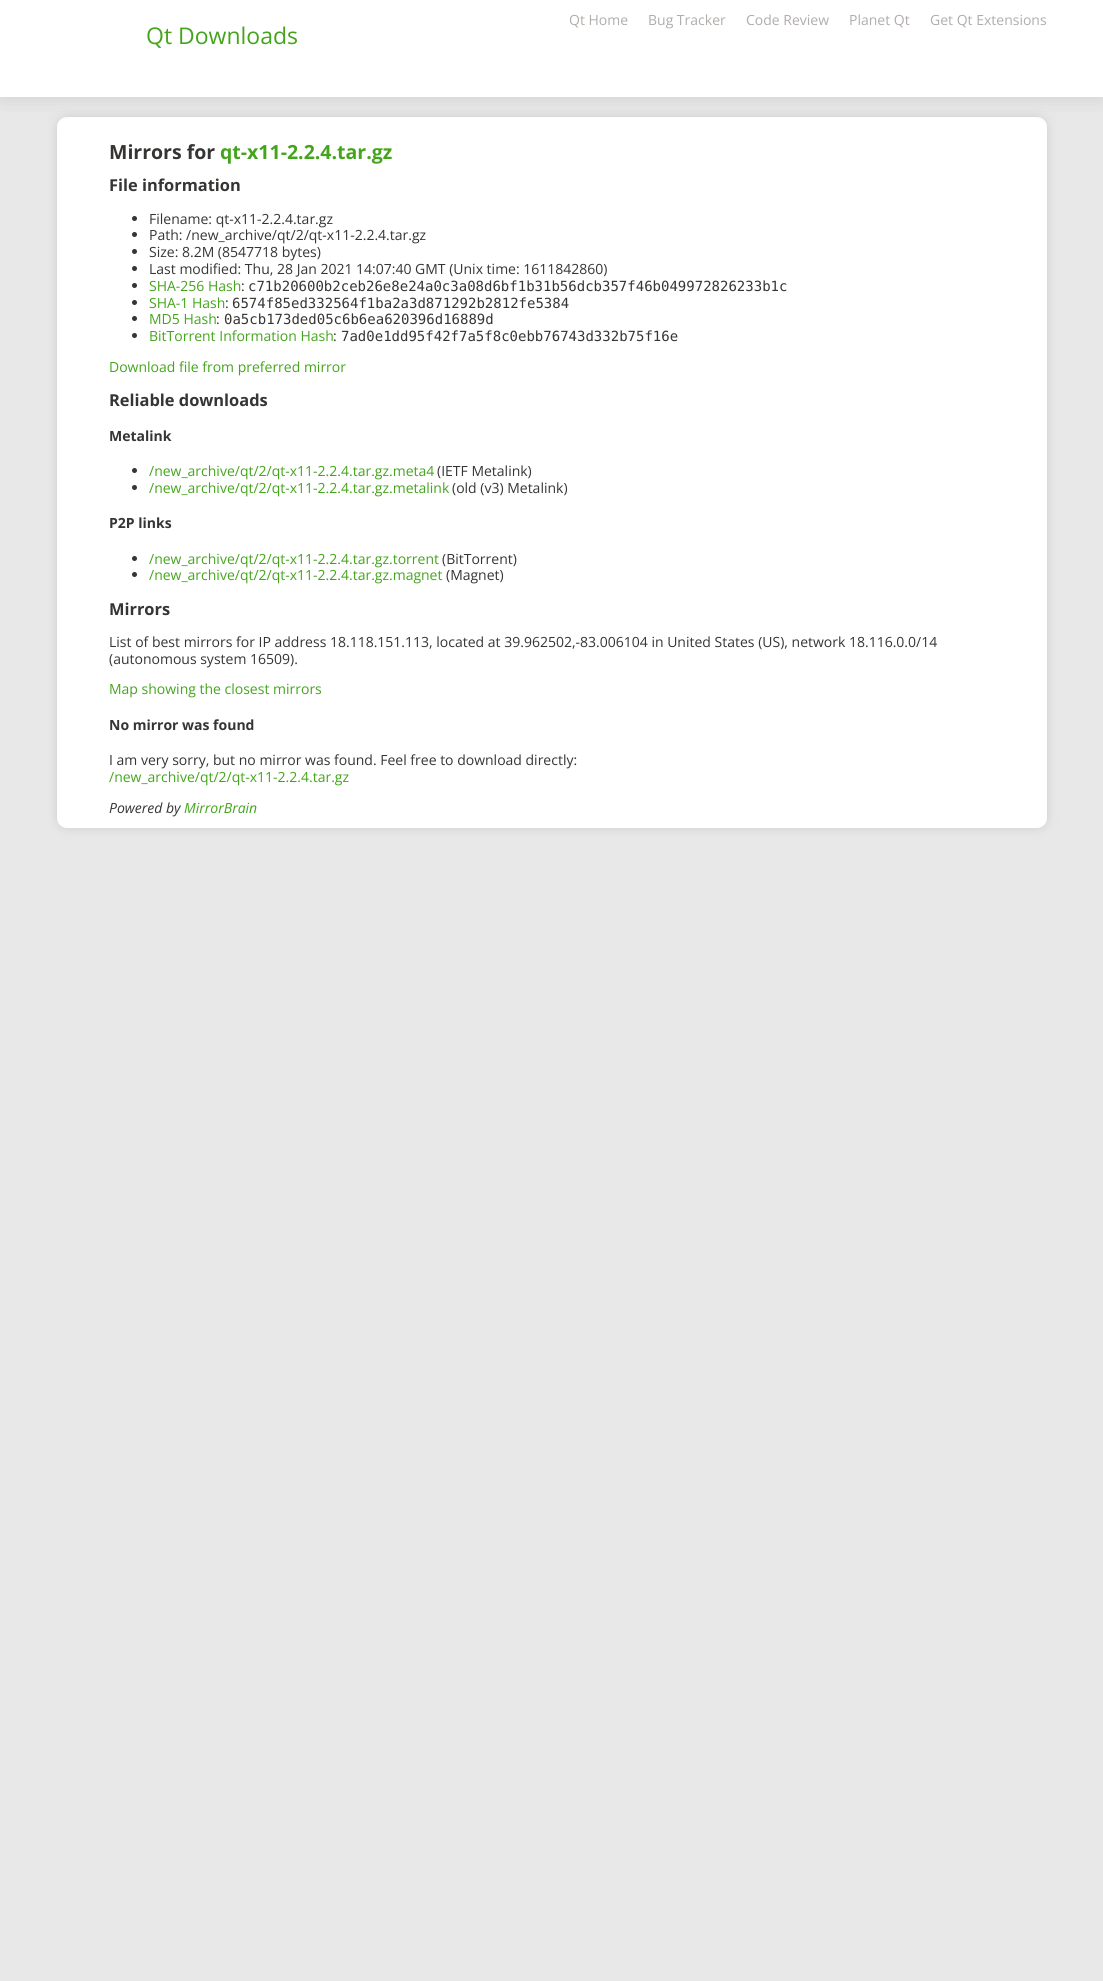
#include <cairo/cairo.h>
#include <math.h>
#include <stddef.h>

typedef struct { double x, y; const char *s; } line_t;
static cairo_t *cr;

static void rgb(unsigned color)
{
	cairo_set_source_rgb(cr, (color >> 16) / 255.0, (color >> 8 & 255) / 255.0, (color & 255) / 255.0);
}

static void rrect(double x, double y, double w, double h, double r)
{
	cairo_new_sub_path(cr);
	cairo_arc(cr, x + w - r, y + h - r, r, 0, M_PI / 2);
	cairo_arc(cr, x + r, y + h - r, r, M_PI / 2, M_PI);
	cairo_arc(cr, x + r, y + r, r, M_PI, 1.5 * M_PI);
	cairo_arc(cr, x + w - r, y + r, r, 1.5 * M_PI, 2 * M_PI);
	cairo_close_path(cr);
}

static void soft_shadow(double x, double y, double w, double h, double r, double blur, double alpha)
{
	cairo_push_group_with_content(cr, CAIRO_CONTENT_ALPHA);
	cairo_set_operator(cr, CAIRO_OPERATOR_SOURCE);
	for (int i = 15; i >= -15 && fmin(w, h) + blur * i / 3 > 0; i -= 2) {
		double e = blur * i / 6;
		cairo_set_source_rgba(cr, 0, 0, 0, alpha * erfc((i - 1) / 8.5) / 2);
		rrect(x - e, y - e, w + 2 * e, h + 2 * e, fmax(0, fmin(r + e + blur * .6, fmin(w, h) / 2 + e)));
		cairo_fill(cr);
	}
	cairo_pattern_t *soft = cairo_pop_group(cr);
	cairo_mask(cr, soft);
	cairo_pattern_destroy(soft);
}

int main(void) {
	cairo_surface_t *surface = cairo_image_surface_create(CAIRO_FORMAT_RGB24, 1103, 1981);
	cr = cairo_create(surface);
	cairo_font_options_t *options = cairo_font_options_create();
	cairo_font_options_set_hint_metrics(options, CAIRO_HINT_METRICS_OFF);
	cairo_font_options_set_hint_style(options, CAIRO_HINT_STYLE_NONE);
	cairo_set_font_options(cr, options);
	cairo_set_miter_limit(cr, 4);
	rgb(0xe8e8e8);
	cairo_paint(cr);
	rgb(0xcdcdcd);
	soft_shadow(57, 117, 990, 711, 10, 5, 1);
	rgb(0xffffff);
	rrect(57, 117, 990, 711, 10);
	cairo_fill(cr);
	rgb(0xcdcdcd);
	soft_shadow(0, 0, 1103, 97, 0, 10, 1);
	rgb(0xffffff);
	cairo_rectangle(cr, 0, 0, 1103, 97);
	cairo_fill(cr);
	rgb(0x363534);
	cairo_arc(cr, 134.5, 218.5, 2.5, 0, 2 * M_PI);
	cairo_fill(cr);
	cairo_arc(cr, 134.5, 234.5, 2.5, 0, 2 * M_PI);
	cairo_fill(cr);
	cairo_arc(cr, 134.5, 251.5, 2.5, 0, 2 * M_PI);
	cairo_fill(cr);
	cairo_arc(cr, 134.5, 268.5, 2.5, 0, 2 * M_PI);
	cairo_fill(cr);
	cairo_arc(cr, 134.5, 285.5, 2.5, 0, 2 * M_PI);
	cairo_fill(cr);
	cairo_arc(cr, 134.5, 302.5, 2.5, 0, 2 * M_PI);
	cairo_fill(cr);
	cairo_arc(cr, 134.5, 318.5, 2.5, 0, 2 * M_PI);
	cairo_fill(cr);
	cairo_arc(cr, 134.5, 335.5, 2.5, 0, 2 * M_PI);
	cairo_fill(cr);
	cairo_arc(cr, 134.5, 470.5, 2.5, 0, 2 * M_PI);
	cairo_fill(cr);
	cairo_arc(cr, 134.5, 487.5, 2.5, 0, 2 * M_PI);
	cairo_fill(cr);
	cairo_arc(cr, 134.5, 558.5, 2.5, 0, 2 * M_PI);
	cairo_fill(cr);
	cairo_arc(cr, 134.5, 574.5, 2.5, 0, 2 * M_PI);
	cairo_fill(cr);
	cairo_select_font_face(cr, "Open Sans", CAIRO_FONT_SLANT_NORMAL, CAIRO_FONT_WEIGHT_NORMAL);
	cairo_set_font_size(cr, 14);
	rgb(0xb0adab);
	{
		static const line_t items[] = {
			{569, 25, "Qt Home"},
			{648, 25, "Bug Tracker"},
			{746, 25, "Code Review"},
			{849, 25, "Planet Qt"},
			{930, 25, "Get Qt Extensions"},
		};
		for (size_t i = 0; i < sizeof items / sizeof *items; i++) {
			cairo_move_to(cr, items[i].x, items[i].y);
			cairo_show_text(cr, items[i].s);
		}
	}
	cairo_set_font_size(cr, 23);
	rgb(0x44a51c);
	cairo_move_to(cr, 146, 44);
	cairo_show_text(cr, "Qt Downloads");
	cairo_select_font_face(cr, "Open Sans", CAIRO_FONT_SLANT_NORMAL, CAIRO_FONT_WEIGHT_BOLD);
	cairo_set_font_size(cr, 19.5);
	rgb(0x363534);
	cairo_move_to(cr, 109, 159);
	cairo_show_text(cr, "Mirrors for");
	rgb(0x44a51c);
	cairo_move_to(cr, 220, 159);
	cairo_show_text(cr, "qt-x11-2.2.4.tar.gz");
	cairo_set_font_size(cr, 16.4);
	rgb(0x363534);
	cairo_move_to(cr, 109, 191);
	cairo_show_text(cr, "File information");
	cairo_select_font_face(cr, "Open Sans", CAIRO_FONT_SLANT_NORMAL, CAIRO_FONT_WEIGHT_NORMAL);
	cairo_set_font_size(cr, 14);
	{
		static const line_t items[] = {
			{149, 224, "Filename: qt-x11-2.2.4.tar.gz"},
			{149, 240, "Path: /new_archive/qt/2/qt-x11-2.2.4.tar.gz"},
			{149, 257, "Size: 8.2M (8547718 bytes)"},
			{149, 274, "Last modified: Thu, 28 Jan 2021 14:07:40 GMT (Unix time: 1611842860)"},
		};
		for (size_t i = 0; i < sizeof items / sizeof *items; i++) {
			cairo_move_to(cr, items[i].x, items[i].y);
			cairo_show_text(cr, items[i].s);
		}
	}
	rgb(0x44a51c);
	cairo_move_to(cr, 149, 291);
	cairo_show_text(cr, "SHA-256 Hash");
	rgb(0x363534);
	cairo_move_to(cr, 241, 291);
	cairo_show_text(cr, ":");
	cairo_select_font_face(cr, "DejaVu Sans Mono", CAIRO_FONT_SLANT_NORMAL, CAIRO_FONT_WEIGHT_NORMAL);
	cairo_move_to(cr, 248, 291);
	cairo_show_text(cr, "c71b20600b2ceb26e8e24a0c3a08d6bf1b31b56dcb357f46b049972826233b1c");
	cairo_select_font_face(cr, "Open Sans", CAIRO_FONT_SLANT_NORMAL, CAIRO_FONT_WEIGHT_NORMAL);
	rgb(0x44a51c);
	cairo_move_to(cr, 149, 308);
	cairo_show_text(cr, "SHA-1 Hash");
	rgb(0x363534);
	cairo_move_to(cr, 225, 308);
	cairo_show_text(cr, ":");
	cairo_select_font_face(cr, "DejaVu Sans Mono", CAIRO_FONT_SLANT_NORMAL, CAIRO_FONT_WEIGHT_NORMAL);
	cairo_move_to(cr, 232, 308);
	cairo_show_text(cr, "6574f85ed332564f1ba2a3d871292b2812fe5384");
	cairo_select_font_face(cr, "Open Sans", CAIRO_FONT_SLANT_NORMAL, CAIRO_FONT_WEIGHT_NORMAL);
	rgb(0x44a51c);
	cairo_move_to(cr, 149, 324);
	cairo_show_text(cr, "MD5 Hash");
	rgb(0x363534);
	cairo_move_to(cr, 216, 324);
	cairo_show_text(cr, ":");
	cairo_select_font_face(cr, "DejaVu Sans Mono", CAIRO_FONT_SLANT_NORMAL, CAIRO_FONT_WEIGHT_NORMAL);
	cairo_move_to(cr, 224, 324);
	cairo_show_text(cr, "0a5cb173ded05c6b6ea620396d16889d");
	cairo_select_font_face(cr, "Open Sans", CAIRO_FONT_SLANT_NORMAL, CAIRO_FONT_WEIGHT_NORMAL);
	rgb(0x44a51c);
	cairo_move_to(cr, 149, 341);
	cairo_show_text(cr, "BitTorrent Information Hash");
	rgb(0x363534);
	cairo_move_to(cr, 333, 341);
	cairo_show_text(cr, ":");
	cairo_select_font_face(cr, "DejaVu Sans Mono", CAIRO_FONT_SLANT_NORMAL, CAIRO_FONT_WEIGHT_NORMAL);
	cairo_move_to(cr, 341, 341);
	cairo_show_text(cr, "7ad0e1dd95f42f7a5f8c0ebb76743d332b75f16e");
	cairo_select_font_face(cr, "Open Sans", CAIRO_FONT_SLANT_NORMAL, CAIRO_FONT_WEIGHT_NORMAL);
	rgb(0x44a51c);
	cairo_move_to(cr, 109, 372);
	cairo_show_text(cr, "Download file from preferred mirror");
	cairo_select_font_face(cr, "Open Sans", CAIRO_FONT_SLANT_NORMAL, CAIRO_FONT_WEIGHT_BOLD);
	cairo_set_font_size(cr, 16.4);
	rgb(0x363534);
	cairo_move_to(cr, 109, 406);
	cairo_show_text(cr, "Reliable downloads");
	cairo_set_font_size(cr, 14);
	cairo_move_to(cr, 109, 441);
	cairo_show_text(cr, "Metalink");
	cairo_select_font_face(cr, "Open Sans", CAIRO_FONT_SLANT_NORMAL, CAIRO_FONT_WEIGHT_NORMAL);
	rgb(0x44a51c);
	cairo_move_to(cr, 149, 476);
	cairo_show_text(cr, "/new_archive/qt/2/qt-x11-2.2.4.tar.gz.meta4");
	rgb(0x363534);
	cairo_move_to(cr, 437, 476);
	cairo_show_text(cr, "(IETF Metalink)");
	rgb(0x44a51c);
	cairo_move_to(cr, 149, 493);
	cairo_show_text(cr, "/new_archive/qt/2/qt-x11-2.2.4.tar.gz.metalink");
	rgb(0x363534);
	cairo_move_to(cr, 452, 493);
	cairo_show_text(cr, "(old (v3) Metalink)");
	cairo_select_font_face(cr, "Open Sans", CAIRO_FONT_SLANT_NORMAL, CAIRO_FONT_WEIGHT_BOLD);
	cairo_move_to(cr, 109, 528);
	cairo_show_text(cr, "P2P links");
	cairo_select_font_face(cr, "Open Sans", CAIRO_FONT_SLANT_NORMAL, CAIRO_FONT_WEIGHT_NORMAL);
	rgb(0x44a51c);
	cairo_move_to(cr, 149, 564);
	cairo_show_text(cr, "/new_archive/qt/2/qt-x11-2.2.4.tar.gz.torrent");
	rgb(0x363534);
	cairo_move_to(cr, 442, 564);
	cairo_show_text(cr, "(BitTorrent)");
	rgb(0x44a51c);
	cairo_move_to(cr, 149, 580);
	cairo_show_text(cr, "/new_archive/qt/2/qt-x11-2.2.4.tar.gz.magnet");
	rgb(0x363534);
	cairo_move_to(cr, 446, 580);
	cairo_show_text(cr, "(Magnet)");
	cairo_select_font_face(cr, "Open Sans", CAIRO_FONT_SLANT_NORMAL, CAIRO_FONT_WEIGHT_BOLD);
	cairo_set_font_size(cr, 16.4);
	cairo_move_to(cr, 109, 615);
	cairo_show_text(cr, "Mirrors");
	cairo_select_font_face(cr, "Open Sans", CAIRO_FONT_SLANT_NORMAL, CAIRO_FONT_WEIGHT_NORMAL);
	cairo_set_font_size(cr, 14);
	cairo_move_to(cr, 109, 647);
	cairo_show_text(cr, "List of best mirrors for IP address 18.118.151.113, located at 39.962502,-83.006104 in United States (US), network 18.116.0.0/14");
	cairo_move_to(cr, 109, 664);
	cairo_show_text(cr, "(autonomous system 16509).");
	rgb(0x44a51c);
	cairo_move_to(cr, 109, 694);
	cairo_show_text(cr, "Map showing the closest mirrors");
	cairo_select_font_face(cr, "Open Sans", CAIRO_FONT_SLANT_NORMAL, CAIRO_FONT_WEIGHT_BOLD);
	rgb(0x363534);
	cairo_move_to(cr, 109, 730);
	cairo_show_text(cr, "No mirror was found");
	cairo_select_font_face(cr, "Open Sans", CAIRO_FONT_SLANT_NORMAL, CAIRO_FONT_WEIGHT_NORMAL);
	cairo_move_to(cr, 109, 765);
	cairo_show_text(cr, "I am very sorry, but no mirror was found. Feel free to download directly:");
	rgb(0x44a51c);
	cairo_move_to(cr, 109, 782);
	cairo_show_text(cr, "/new_archive/qt/2/qt-x11-2.2.4.tar.gz");
	cairo_select_font_face(cr, "Open Sans", CAIRO_FONT_SLANT_ITALIC, CAIRO_FONT_WEIGHT_NORMAL);
	rgb(0x363534);
	cairo_move_to(cr, 109, 813);
	cairo_show_text(cr, "Powered by");
	rgb(0x44a51c);
	cairo_move_to(cr, 184, 813);
	cairo_show_text(cr, "MirrorBrain");
	cairo_surface_write_to_png(surface, "page.png");
	cairo_font_options_destroy(options);
	cairo_destroy(cr);
	cairo_surface_destroy(surface);
	return 0;
}
